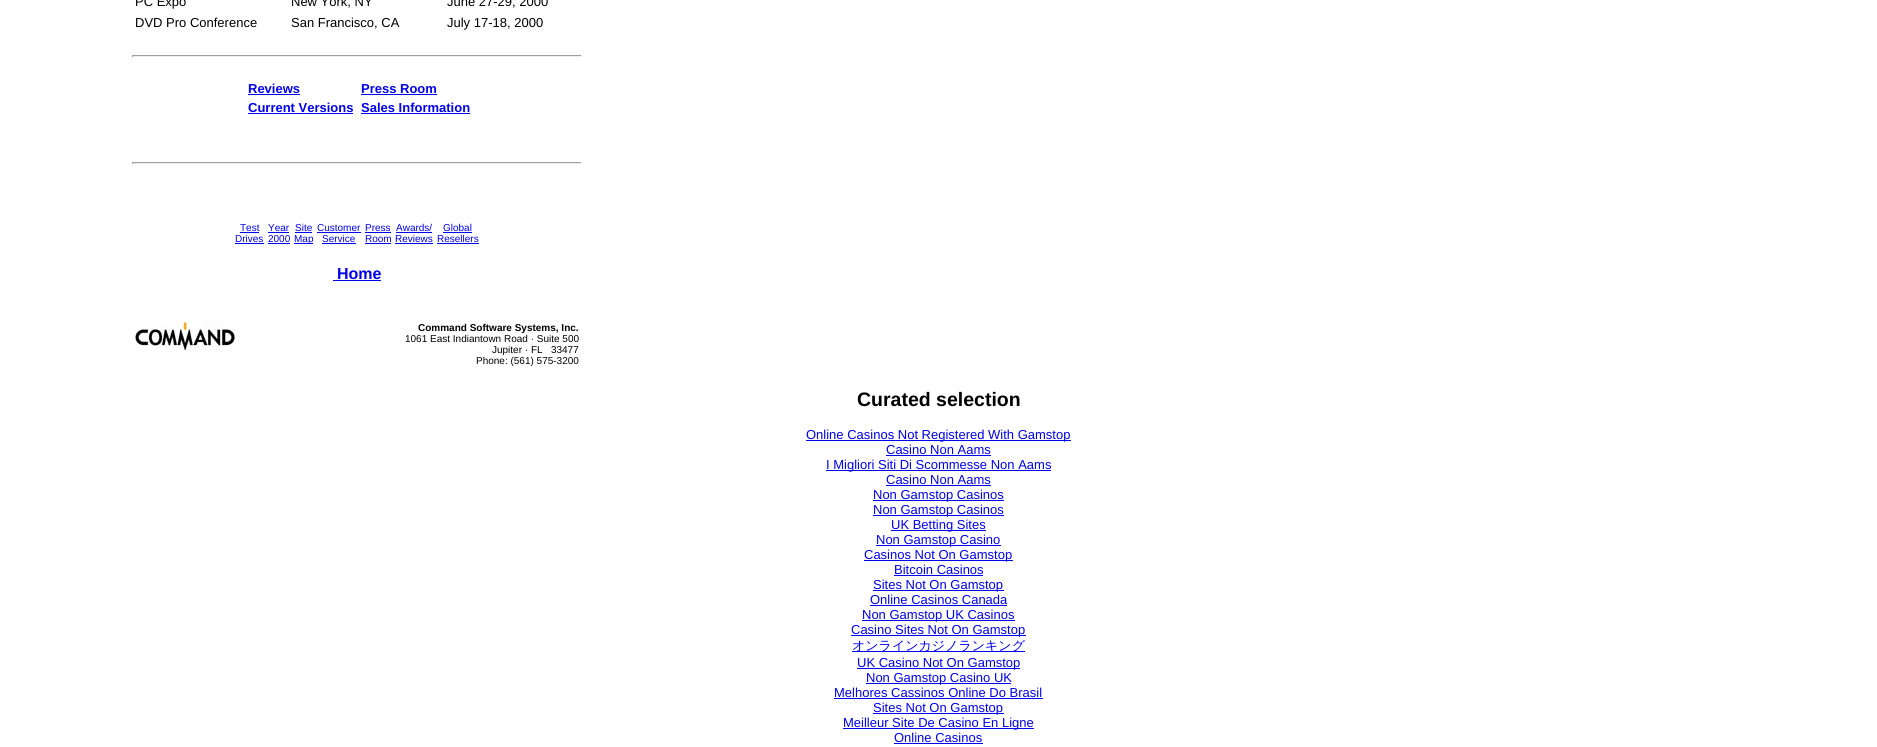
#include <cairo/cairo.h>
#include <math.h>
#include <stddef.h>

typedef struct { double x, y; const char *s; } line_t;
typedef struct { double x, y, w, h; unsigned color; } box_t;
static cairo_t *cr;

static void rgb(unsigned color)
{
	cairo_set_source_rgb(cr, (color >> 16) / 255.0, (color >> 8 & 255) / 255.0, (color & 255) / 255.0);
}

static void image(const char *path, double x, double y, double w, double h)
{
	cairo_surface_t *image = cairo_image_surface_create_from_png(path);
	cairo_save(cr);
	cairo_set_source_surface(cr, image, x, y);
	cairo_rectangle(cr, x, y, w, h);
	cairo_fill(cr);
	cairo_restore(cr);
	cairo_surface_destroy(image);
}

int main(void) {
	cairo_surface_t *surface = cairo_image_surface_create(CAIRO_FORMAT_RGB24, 1877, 747);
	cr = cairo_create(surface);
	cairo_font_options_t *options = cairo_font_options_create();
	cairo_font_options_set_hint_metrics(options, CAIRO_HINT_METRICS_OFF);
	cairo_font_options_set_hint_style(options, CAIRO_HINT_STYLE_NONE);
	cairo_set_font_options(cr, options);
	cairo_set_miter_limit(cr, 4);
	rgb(0xffffff);
	cairo_paint(cr);
	{
		static const box_t items[] = {
			{132, 55, 450, 1, 0x9f9f9f},
			{581, 55, 1, 2, 0xeeeeee},
			{132, 56, 450, 1, 0xeeeeee},
			{132, 55, 1, 2, 0x9f9f9f},
			{248, 94, 52, 1, 0x0000ee},
			{361, 94, 76, 1, 0x0000ee},
			{248, 113, 105, 1, 0x0000ee},
			{361, 113, 109, 1, 0x0000ee},
			{132, 162, 450, 1, 0x9f9f9f},
			{581, 162, 1, 2, 0xeeeeee},
			{132, 163, 450, 1, 0xeeeeee},
			{132, 162, 1, 2, 0x9f9f9f},
			{240, 232, 19, 1, 0x0000ee},
			{235, 243, 29, 1, 0x0000ee},
			{268, 232, 21, 1, 0x0000ee},
			{268, 243, 22, 1, 0x0000ee},
			{295, 232, 17, 1, 0x0000ee},
			{294, 243, 19, 1, 0x0000ee},
			{317, 232, 44, 1, 0x0000ee},
			{322, 243, 34, 1, 0x0000ee},
			{365, 232, 26, 1, 0x0000ee},
			{365, 243, 26, 1, 0x0000ee},
			{396, 232, 36, 1, 0x0000ee},
			{395, 243, 38, 1, 0x0000ee},
			{443, 232, 29, 1, 0x0000ee},
			{437, 243, 42, 1, 0x0000ee},
			{333, 280, 48, 1, 0x0000ee},
		};
		for (size_t i = 0; i < sizeof items / sizeof *items; i++) {
			rgb(items[i].color);
			cairo_rectangle(cr, items[i].x, items[i].y, items[i].w, items[i].h);
			cairo_fill(cr);
		}
	}
	image("img/1.png", 135, 322, 100, 29);
	{
		static const box_t items[] = {
			{806, 440, 265, 1, 0x0000ee},
			{886, 455, 105, 1, 0x0000ee},
			{826, 470, 225, 1, 0x0000ee},
			{886, 485, 105, 1, 0x0000ee},
			{873, 500, 131, 1, 0x0000ee},
			{873, 515, 131, 1, 0x0000ee},
			{891, 530, 95, 1, 0x0000ee},
			{876, 545, 125, 1, 0x0000ee},
			{864, 560, 149, 1, 0x0000ee},
			{894, 575, 89, 1, 0x0000ee},
			{873, 590, 131, 1, 0x0000ee},
			{870, 605, 137, 1, 0x0000ee},
			{862, 620, 153, 1, 0x0000ee},
			{851, 635, 175, 1, 0x0000ee},
			{852, 651, 173, 1, 0x0000ee},
			{857, 668, 163, 1, 0x0000ee},
			{866, 683, 145, 1, 0x0000ee},
			{834, 698, 209, 1, 0x0000ee},
			{873, 713, 131, 1, 0x0000ee},
			{843, 728, 191, 1, 0x0000ee},
			{894, 743, 89, 1, 0x0000ee},
		};
		for (size_t i = 0; i < sizeof items / sizeof *items; i++) {
			rgb(items[i].color);
			cairo_rectangle(cr, items[i].x, items[i].y, items[i].w, items[i].h);
			cairo_fill(cr);
		}
	}
	cairo_select_font_face(cr, "Liberation Sans", CAIRO_FONT_SLANT_NORMAL, CAIRO_FONT_WEIGHT_NORMAL);
	cairo_set_font_size(cr, 13);
	rgb(0x000000);
	{
		static const line_t items[] = {
			{135, 6, "PC Expo"},
			{291, 6, "New York, NY"},
			{447, 6, "June 27-29, 2000"},
			{135, 27, "DVD Pro Conference"},
			{291, 27, "San Francisco, CA"},
			{447, 27, "July 17-18, 2000"},
		};
		for (size_t i = 0; i < sizeof items / sizeof *items; i++) {
			cairo_move_to(cr, items[i].x, items[i].y);
			cairo_show_text(cr, items[i].s);
		}
	}
	cairo_select_font_face(cr, "Liberation Sans", CAIRO_FONT_SLANT_NORMAL, CAIRO_FONT_WEIGHT_BOLD);
	rgb(0x0000ee);
	{
		static const line_t items[] = {
			{248, 93, "Reviews"},
			{361, 93, "Press Room"},
			{248, 112, "Current Versions"},
			{361, 112, "Sales Information"},
		};
		for (size_t i = 0; i < sizeof items / sizeof *items; i++) {
			cairo_move_to(cr, items[i].x, items[i].y);
			cairo_show_text(cr, items[i].s);
		}
	}
	cairo_select_font_face(cr, "Liberation Sans", CAIRO_FONT_SLANT_NORMAL, CAIRO_FONT_WEIGHT_NORMAL);
	cairo_set_font_size(cr, 10);
	{
		static const line_t items[] = {
			{240, 231, "Test"},
			{235, 242, "Drives"},
			{268, 231, "Year"},
			{268, 242, "2000"},
			{295, 231, "Site"},
			{294, 242, "Map"},
			{317, 231, "Customer"},
			{322, 242, "Service"},
			{365, 231, "Press"},
			{365, 242, "Room"},
			{396, 231, "Awards/"},
			{395, 242, "Reviews"},
			{443, 231, "Global"},
			{437, 242, "Resellers"},
		};
		for (size_t i = 0; i < sizeof items / sizeof *items; i++) {
			cairo_move_to(cr, items[i].x, items[i].y);
			cairo_show_text(cr, items[i].s);
		}
	}
	cairo_select_font_face(cr, "Liberation Sans", CAIRO_FONT_SLANT_NORMAL, CAIRO_FONT_WEIGHT_BOLD);
	cairo_set_font_size(cr, 16);
	cairo_move_to(cr, 337, 279);
	cairo_show_text(cr, "Home");
	cairo_set_font_size(cr, 10);
	rgb(0x000000);
	cairo_move_to(cr, 418, 331);
	cairo_show_text(cr, "Command Software Systems, Inc.");
	cairo_select_font_face(cr, "Liberation Sans", CAIRO_FONT_SLANT_NORMAL, CAIRO_FONT_WEIGHT_NORMAL);
	{
		static const line_t items[] = {
			{405, 342, "1061 East Indiantown Road · Suite 500"},
			{492, 353, "Jupiter · FL   33477"},
			{476, 364, "Phone: (561) 575-3200"},
		};
		for (size_t i = 0; i < sizeof items / sizeof *items; i++) {
			cairo_move_to(cr, items[i].x, items[i].y);
			cairo_show_text(cr, items[i].s);
		}
	}
	cairo_select_font_face(cr, "Liberation Sans", CAIRO_FONT_SLANT_NORMAL, CAIRO_FONT_WEIGHT_BOLD);
	cairo_set_font_size(cr, 19.5);
	cairo_move_to(cr, 857, 406);
	cairo_show_text(cr, "Curated selection");
	cairo_select_font_face(cr, "Liberation Sans", CAIRO_FONT_SLANT_NORMAL, CAIRO_FONT_WEIGHT_NORMAL);
	cairo_set_font_size(cr, 13);
	rgb(0x0000ee);
	{
		static const line_t items[] = {
			{806, 439, "Online Casinos Not Registered With Gamstop"},
			{886, 454, "Casino Non Aams"},
			{826, 469, "I Migliori Siti Di Scommesse Non Aams"},
			{886, 484, "Casino Non Aams"},
			{873, 499, "Non Gamstop Casinos"},
			{873, 514, "Non Gamstop Casinos"},
			{891, 529, "UK Betting Sites"},
			{876, 544, "Non Gamstop Casino"},
			{864, 559, "Casinos Not On Gamstop"},
			{894, 574, "Bitcoin Casinos"},
			{873, 589, "Sites Not On Gamstop"},
			{870, 604, "Online Casinos Canada"},
			{862, 619, "Non Gamstop UK Casinos"},
			{851, 634, "Casino Sites Not On Gamstop"},
		};
		for (size_t i = 0; i < sizeof items / sizeof *items; i++) {
			cairo_move_to(cr, items[i].x, items[i].y);
			cairo_show_text(cr, items[i].s);
		}
	}
	cairo_select_font_face(cr, "WenQuanYi Zen Hei Medium", CAIRO_FONT_SLANT_NORMAL, CAIRO_FONT_WEIGHT_NORMAL);
	cairo_move_to(cr, 852, 650);
	cairo_show_text(cr, "オンラインカジノランキング");
	cairo_select_font_face(cr, "Liberation Sans", CAIRO_FONT_SLANT_NORMAL, CAIRO_FONT_WEIGHT_NORMAL);
	{
		static const line_t items[] = {
			{857, 667, "UK Casino Not On Gamstop"},
			{866, 682, "Non Gamstop Casino UK"},
			{834, 697, "Melhores Cassinos Online Do Brasil"},
			{873, 712, "Sites Not On Gamstop"},
			{843, 727, "Meilleur Site De Casino En Ligne"},
			{894, 742, "Online Casinos"},
		};
		for (size_t i = 0; i < sizeof items / sizeof *items; i++) {
			cairo_move_to(cr, items[i].x, items[i].y);
			cairo_show_text(cr, items[i].s);
		}
	}
	cairo_surface_write_to_png(surface, "page.png");
	cairo_font_options_destroy(options);
	cairo_destroy(cr);
	cairo_surface_destroy(surface);
	return 0;
}
